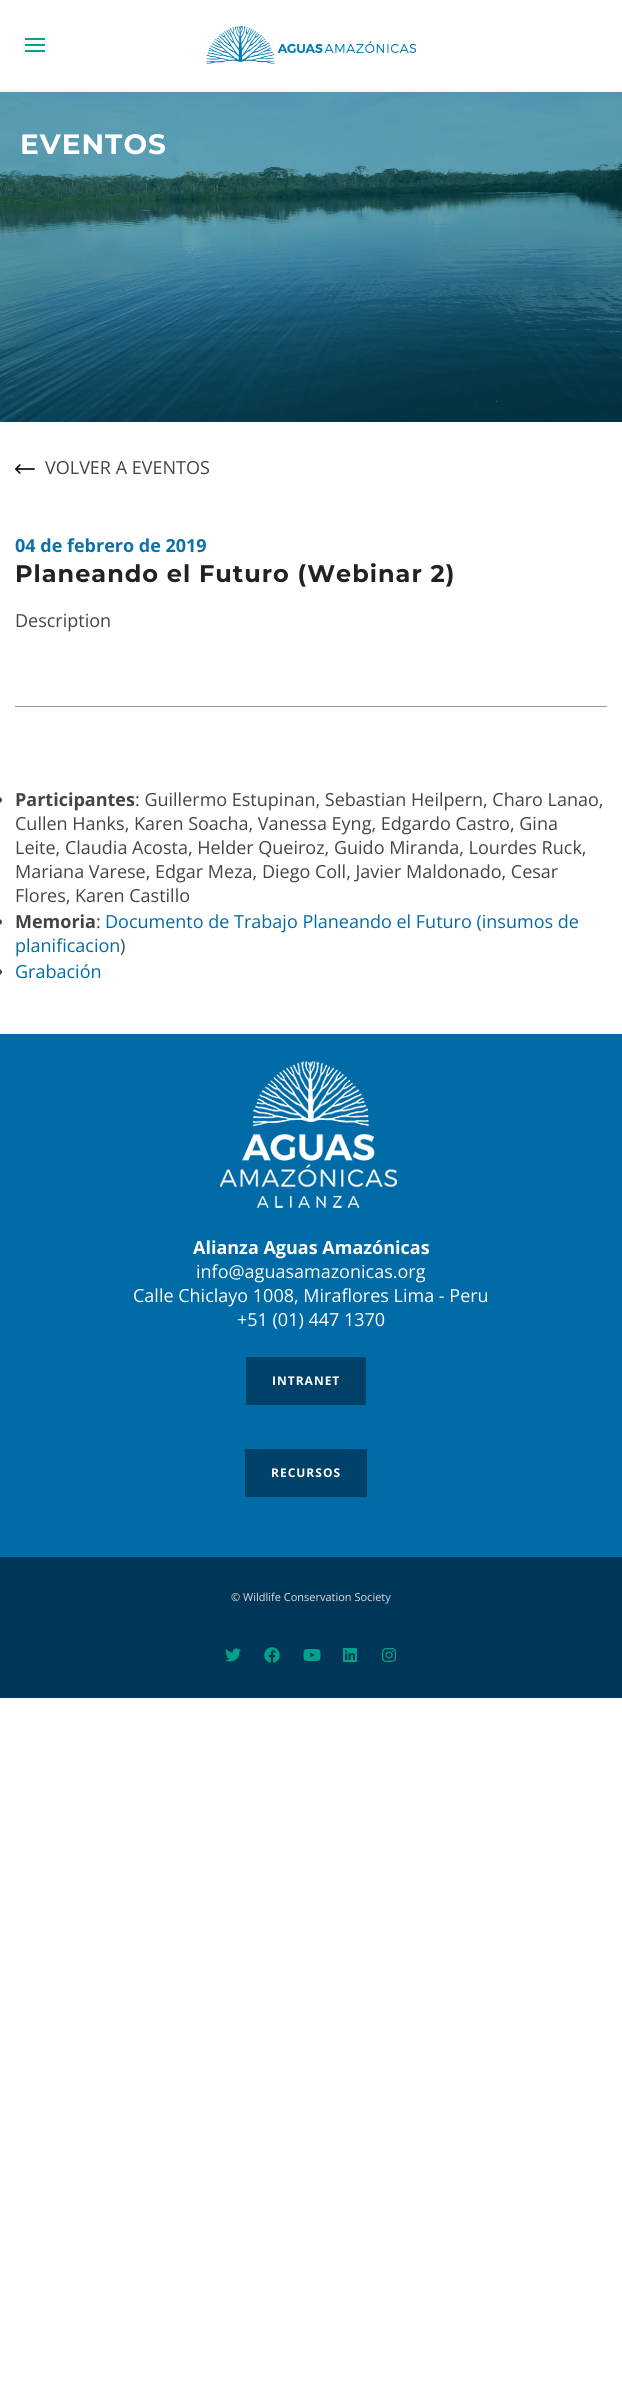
#include <cairo/cairo.h>
#include <math.h>
#include <stddef.h>

typedef struct { double x, y; const char *s; } line_t;
typedef struct { double x, y, w, h; unsigned color; } box_t;
static cairo_t *cr;

static void rgb(unsigned color)
{
	cairo_set_source_rgb(cr, (color >> 16) / 255.0, (color >> 8 & 255) / 255.0, (color & 255) / 255.0);
}

static void tracked(double x, double y, const char *s, double letter, double word)
{
	cairo_move_to(cr, x, y);
	while (*s) {
		char ch[5] = {0};
		int n = 0;
		do ch[n++] = *s++; while ((*s & 0xC0) == 0x80);
		cairo_show_text(cr, ch);
		cairo_rel_move_to(cr, letter + word * (*ch == ' '), 0);
	}
}

static void image(const char *path, double x, double y, double w, double h)
{
	cairo_surface_t *image = cairo_image_surface_create_from_png(path);
	cairo_save(cr);
	cairo_set_source_surface(cr, image, x, y);
	cairo_rectangle(cr, x, y, w, h);
	cairo_fill(cr);
	cairo_restore(cr);
	cairo_surface_destroy(image);
}

int main(void) {
	cairo_surface_t *surface = cairo_image_surface_create(CAIRO_FORMAT_RGB24, 622, 2393);
	cr = cairo_create(surface);
	cairo_font_options_t *options = cairo_font_options_create();
	cairo_font_options_set_hint_metrics(options, CAIRO_HINT_METRICS_OFF);
	cairo_font_options_set_hint_style(options, CAIRO_HINT_STYLE_NONE);
	cairo_set_font_options(cr, options);
	cairo_set_miter_limit(cr, 4);
	rgb(0xffffff);
	cairo_paint(cr);
	{
		static const box_t items[] = {
			{0, 90, 622, 2, 0xf5f5f5},
			{25, 44, 20, 2, 0x00a389},
			{25, 38, 20, 2, 0x00a389},
			{25, 50, 20, 2, 0x00a389},
		};
		for (size_t i = 0; i < sizeof items / sizeof *items; i++) {
			rgb(items[i].color);
			cairo_rectangle(cr, items[i].x, items[i].y, items[i].w, items[i].h);
			cairo_fill(cr);
		}
	}
	image("img/1.png", 206, 25, 210, 40);
	image("img/2.png", 0, 92, 622, 330);
	image("img/3.png", 15, 464, 20, 10);
	rgb(0x999999);
	cairo_rectangle(cr, 15, 706, 592, 1);
	cairo_fill(cr);
	rgb(0x444444);
	cairo_new_path(cr);
	cairo_move_to(cr, 0, 797);
	cairo_line_to(cr, -1, 797);
	cairo_curve_to(cr, 0.5, 797, 2, 798.5, 2, 800);
	cairo_curve_to(cr, 2, 801.5, 0.5, 803, -1, 803);
	cairo_line_to(cr, 0, 803);
	cairo_close_path(cr);
	cairo_fill(cr);
	cairo_new_path(cr);
	cairo_move_to(cr, 0, 919);
	cairo_line_to(cr, -1, 919);
	cairo_curve_to(cr, 0.5, 919, 2, 920.5, 2, 922);
	cairo_curve_to(cr, 2, 923.5, 0.5, 925, -1, 925);
	cairo_line_to(cr, 0, 925);
	cairo_close_path(cr);
	cairo_fill(cr);
	cairo_new_path(cr);
	cairo_move_to(cr, 0, 969);
	cairo_line_to(cr, -1, 969);
	cairo_curve_to(cr, 0.5, 969, 2, 970.5, 2, 972);
	cairo_curve_to(cr, 2, 973.5, 0.5, 975, -1, 975);
	cairo_line_to(cr, 0, 975);
	cairo_close_path(cr);
	cairo_fill(cr);
	rgb(0x006ba6);
	cairo_rectangle(cr, 0, 1034, 622, 523);
	cairo_fill(cr);
	image("img/4.png", 220, 1061, 177, 147);
	{
		static const box_t items[] = {
			{246, 1357, 120, 48, 0x00416a},
			{245, 1449, 122, 48, 0x00416a},
			{0, 1557, 622, 141, 0x003759},
		};
		for (size_t i = 0; i < sizeof items / sizeof *items; i++) {
			rgb(items[i].color);
			cairo_rectangle(cr, items[i].x, items[i].y, items[i].w, items[i].h);
			cairo_fill(cr);
		}
	}
	image("img/5.png", 225, 1648, 16, 14);
	image("img/6.png", 264, 1647, 16, 16);
	image("img/7.png", 303, 1649, 18, 12);
	image("img/8.png", 343, 1648, 14, 14);
	image("img/9.png", 382, 1648, 14, 14);
	cairo_select_font_face(cr, "Montserrat", CAIRO_FONT_SLANT_NORMAL, CAIRO_FONT_WEIGHT_BOLD);
	cairo_set_font_size(cr, 28);
	rgb(0xffffff);
	tracked(20, 154, "EVENTOS", 1, 0);
	cairo_select_font_face(cr, "Open Sans", CAIRO_FONT_SLANT_NORMAL, CAIRO_FONT_WEIGHT_NORMAL);
	cairo_set_font_size(cr, 18);
	rgb(0x444444);
	cairo_move_to(cr, 45, 474);
	cairo_show_text(cr, "VOLVER A EVENTOS");
	cairo_select_font_face(cr, "Open Sans", CAIRO_FONT_SLANT_NORMAL, CAIRO_FONT_WEIGHT_BOLD);
	rgb(0x0c71a8);
	cairo_move_to(cr, 15, 552);
	cairo_show_text(cr, "04 de febrero de 2019");
	cairo_select_font_face(cr, "Montserrat", CAIRO_FONT_SLANT_NORMAL, CAIRO_FONT_WEIGHT_BOLD);
	cairo_set_font_size(cr, 24);
	rgb(0x222222);
	tracked(15, 582, "Planeando el Futuro (Webinar 2)", 1, 0);
	cairo_select_font_face(cr, "Open Sans", CAIRO_FONT_SLANT_NORMAL, CAIRO_FONT_WEIGHT_NORMAL);
	cairo_set_font_size(cr, 18);
	rgb(0x444444);
	cairo_move_to(cr, 15, 627);
	cairo_show_text(cr, "Description");
	cairo_select_font_face(cr, "Open Sans", CAIRO_FONT_SLANT_NORMAL, CAIRO_FONT_WEIGHT_BOLD);
	cairo_move_to(cr, 15, 806);
	cairo_show_text(cr, "Participantes");
	cairo_select_font_face(cr, "Open Sans", CAIRO_FONT_SLANT_NORMAL, CAIRO_FONT_WEIGHT_NORMAL);
	{
		static const line_t items[] = {
			{135, 806, ": Guillermo Estupinan, Sebastian Heilpern, Charo Lanao,"},
			{15, 830, "Cullen Hanks, Karen Soacha, Vanessa Eyng, Edgardo Castro, Gina"},
			{15, 854, "Leite, Claudia Acosta, Helder Queiroz, Guido Miranda, Lourdes Ruck,"},
			{15, 878, "Mariana Varese, Edgar Meza, Diego Coll, Javier Maldonado, Cesar"},
			{15, 902, "Flores, Karen Castillo"},
		};
		for (size_t i = 0; i < sizeof items / sizeof *items; i++) {
			cairo_move_to(cr, items[i].x, items[i].y);
			cairo_show_text(cr, items[i].s);
		}
	}
	cairo_select_font_face(cr, "Open Sans", CAIRO_FONT_SLANT_NORMAL, CAIRO_FONT_WEIGHT_BOLD);
	cairo_move_to(cr, 15, 928);
	cairo_show_text(cr, "Memoria");
	cairo_select_font_face(cr, "Open Sans", CAIRO_FONT_SLANT_NORMAL, CAIRO_FONT_WEIGHT_NORMAL);
	cairo_move_to(cr, 96, 928);
	cairo_show_text(cr, ":");
	rgb(0x006ba6);
	cairo_move_to(cr, 105, 928);
	cairo_show_text(cr, "Documento de Trabajo Planeando el Futuro (insumos de");
	cairo_move_to(cr, 15, 952);
	cairo_show_text(cr, "planificacion");
	rgb(0x444444);
	cairo_move_to(cr, 120, 952);
	cairo_show_text(cr, ")");
	rgb(0x006ba6);
	cairo_move_to(cr, 15, 978);
	cairo_show_text(cr, "Grabación");
	cairo_select_font_face(cr, "Open Sans", CAIRO_FONT_SLANT_NORMAL, CAIRO_FONT_WEIGHT_BOLD);
	rgb(0xffffff);
	cairo_move_to(cr, 193, 1254);
	cairo_show_text(cr, "Alianza Aguas Amazónicas");
	cairo_select_font_face(cr, "Open Sans", CAIRO_FONT_SLANT_NORMAL, CAIRO_FONT_WEIGHT_NORMAL);
	{
		static const line_t items[] = {
			{196, 1278, "info@aguasamazonicas.org"},
			{133, 1302, "Calle Chiclayo 1008, Miraflores Lima - Peru"},
			{237, 1326, "+51 (01) 447 1370"},
		};
		for (size_t i = 0; i < sizeof items / sizeof *items; i++) {
			cairo_move_to(cr, items[i].x, items[i].y);
			cairo_show_text(cr, items[i].s);
		}
	}
	cairo_select_font_face(cr, "Open Sans", CAIRO_FONT_SLANT_NORMAL, CAIRO_FONT_WEIGHT_BOLD);
	cairo_set_font_size(cr, 12);
	tracked(272, 1385, "INTRANET", 1, 0);
	tracked(271, 1477, "RECURSOS", 1, 0);
	cairo_select_font_face(cr, "Open Sans", CAIRO_FONT_SLANT_NORMAL, CAIRO_FONT_WEIGHT_NORMAL);
	cairo_set_font_size(cr, 11);
	rgb(0xdddddd);
	cairo_move_to(cr, 231, 1601);
	cairo_show_text(cr, "© Wildlife Conservation Society");
	cairo_surface_write_to_png(surface, "page.png");
	cairo_font_options_destroy(options);
	cairo_destroy(cr);
	cairo_surface_destroy(surface);
	return 0;
}
